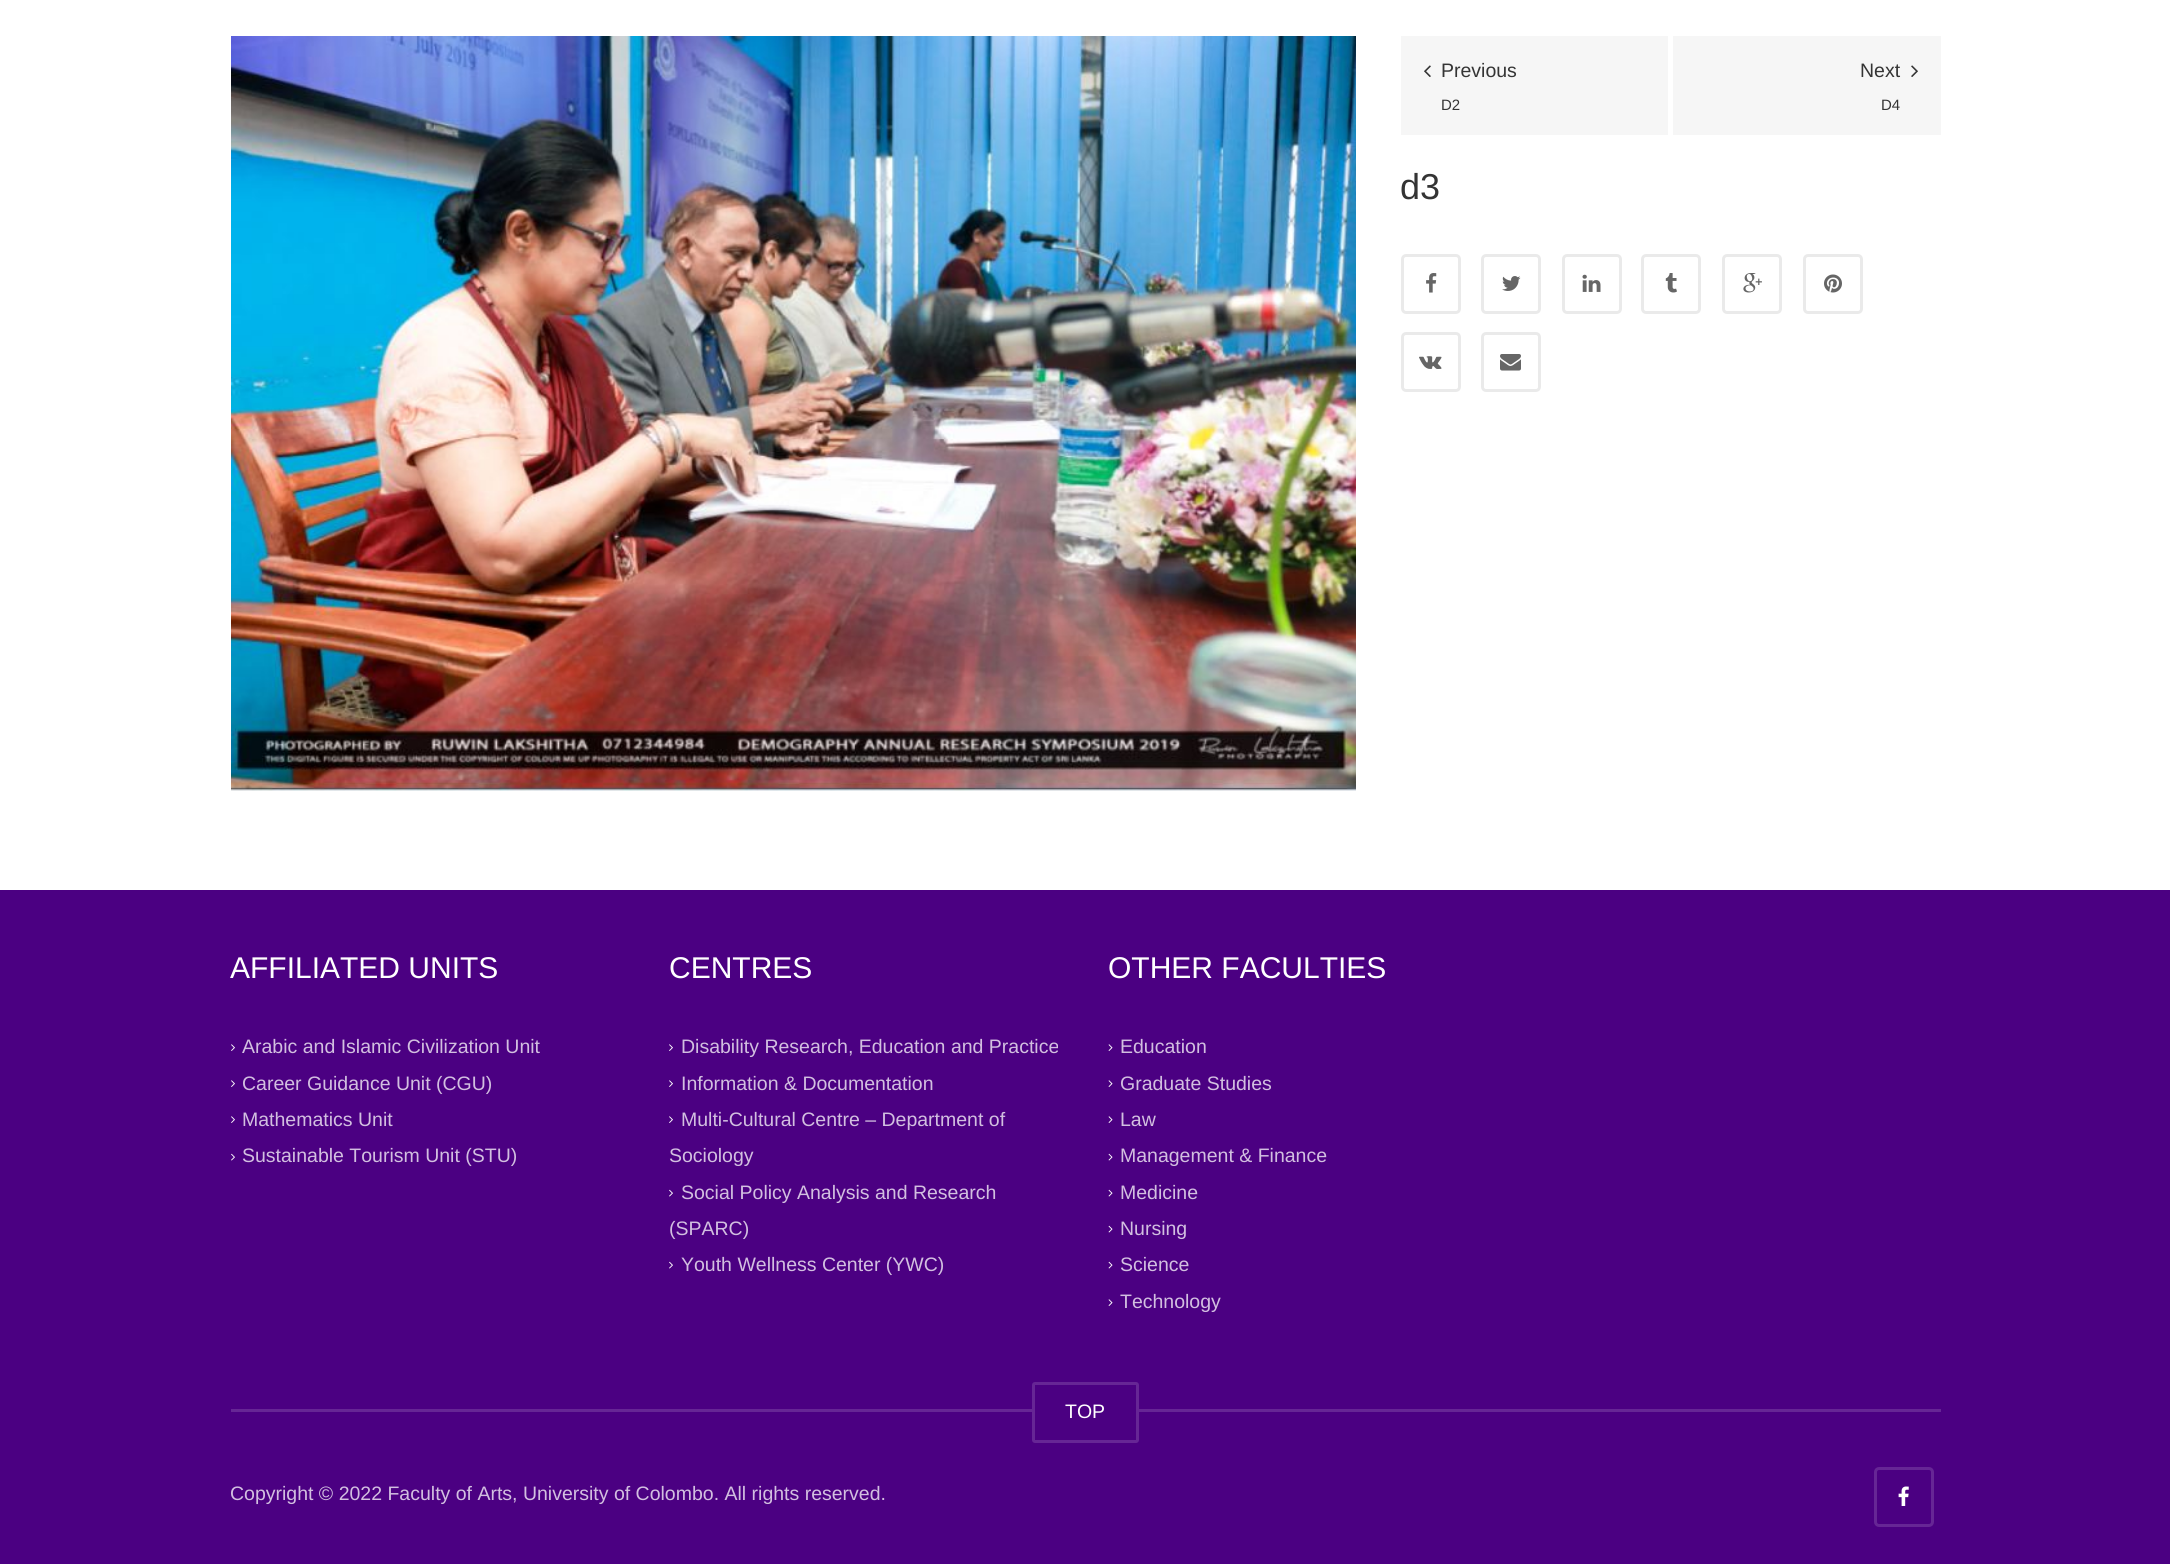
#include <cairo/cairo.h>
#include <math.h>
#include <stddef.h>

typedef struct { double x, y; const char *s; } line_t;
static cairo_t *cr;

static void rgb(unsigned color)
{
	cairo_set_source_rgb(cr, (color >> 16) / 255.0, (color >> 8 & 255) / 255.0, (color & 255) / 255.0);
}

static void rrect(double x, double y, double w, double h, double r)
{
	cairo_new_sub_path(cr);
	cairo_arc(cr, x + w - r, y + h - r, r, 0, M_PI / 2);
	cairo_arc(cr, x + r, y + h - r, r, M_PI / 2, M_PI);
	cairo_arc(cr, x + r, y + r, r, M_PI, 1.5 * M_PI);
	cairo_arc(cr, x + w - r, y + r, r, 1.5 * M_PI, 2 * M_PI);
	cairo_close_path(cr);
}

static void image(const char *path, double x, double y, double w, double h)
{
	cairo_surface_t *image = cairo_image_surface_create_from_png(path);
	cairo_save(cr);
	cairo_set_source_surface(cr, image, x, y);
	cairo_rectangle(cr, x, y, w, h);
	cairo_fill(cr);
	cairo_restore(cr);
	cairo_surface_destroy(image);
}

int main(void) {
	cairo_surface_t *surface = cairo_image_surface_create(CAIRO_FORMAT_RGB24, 2170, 1564);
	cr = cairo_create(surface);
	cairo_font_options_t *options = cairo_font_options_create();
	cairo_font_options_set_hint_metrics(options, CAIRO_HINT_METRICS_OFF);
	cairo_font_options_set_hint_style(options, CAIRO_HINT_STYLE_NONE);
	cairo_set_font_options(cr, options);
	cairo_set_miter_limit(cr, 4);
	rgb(0xffffff);
	cairo_paint(cr);
	image("img/1.png", 231, 36, 1125, 755);
	rgb(0xf6f6f6);
	cairo_rectangle(cr, 1401, 36, 540, 99);
	cairo_fill(cr);
	rgb(0xffffff);
	cairo_rectangle(cr, 1668, 36, 5, 99);
	cairo_fill(cr);
	image("img/2.png", 1424, 65, 7, 12);
	image("img/3.png", 1911, 65, 7, 12);
	rrect(1402.5, 255.5, 57, 57, 3.5);
	rgb(0xeaeaea);
	cairo_set_line_width(cr, 3);
	cairo_stroke(cr);
	image("img/4.png", 1426, 273, 11, 20);
	rrect(1482.5, 255.5, 57, 57, 3.5);
	cairo_stroke(cr);
	image("img/5.png", 1502, 276, 19, 15);
	rrect(1563.5, 255.5, 57, 57, 3.5);
	cairo_stroke(cr);
	image("img/6.png", 1582, 274, 19, 18);
	rrect(1642.5, 255.5, 57, 57, 3.5);
	cairo_stroke(cr);
	image("img/7.png", 1665, 273, 12, 20);
	rrect(1723.5, 255.5, 57, 57, 3.5);
	cairo_stroke(cr);
	image("img/8.png", 1743, 273, 19, 20);
	rrect(1804.5, 255.5, 57, 57, 3.5);
	cairo_stroke(cr);
	image("img/9.png", 1824, 274, 18, 19);
	rrect(1402.5, 333.5, 57, 57, 3.5);
	cairo_stroke(cr);
	image("img/10.png", 1419, 356, 23, 13);
	rrect(1482.5, 333.5, 57, 57, 3.5);
	cairo_stroke(cr);
	image("img/11.png", 1500, 354, 21, 17);
	rgb(0x4b0082);
	cairo_rectangle(cr, 0, 890, 2170, 674);
	cairo_fill(cr);
	image("img/12.png", 231, 1044, 4, 7);
	image("img/12.png", 231, 1080, 4, 7);
	image("img/12.png", 231, 1116, 4, 7);
	image("img/13.png", 231, 1153, 4, 8);
	image("img/12.png", 669, 1044, 4, 7);
	image("img/12.png", 669, 1080, 4, 7);
	image("img/12.png", 669, 1116, 4, 7);
	image("img/13.png", 669, 1189, 4, 8);
	image("img/13.png", 669, 1261, 4, 8);
	image("img/14.png", 1108, 1044, 5, 7);
	image("img/14.png", 1108, 1080, 5, 7);
	image("img/14.png", 1108, 1116, 5, 7);
	image("img/15.png", 1108, 1153, 5, 8);
	image("img/15.png", 1108, 1189, 5, 8);
	image("img/15.png", 1108, 1225, 5, 8);
	image("img/15.png", 1108, 1261, 5, 8);
	image("img/14.png", 1108, 1299, 5, 7);
	rgb(0x662695);
	cairo_rectangle(cr, 231, 1409, 1710, 3);
	cairo_fill(cr);
	rgb(0x4b0082);
	rrect(1033.5, 1383.5, 104, 58, 1.5);
	cairo_fill_preserve(cr);
	rgb(0x662695);
	cairo_stroke(cr);
	rrect(1875.5, 1468.5, 57, 57, 3.5);
	cairo_stroke(cr);
	image("img/16.png", 1898, 1486, 11, 20);
	cairo_select_font_face(cr, "Liberation Sans", CAIRO_FONT_SLANT_NORMAL, CAIRO_FONT_WEIGHT_NORMAL);
	cairo_set_font_size(cr, 19.5);
	rgb(0x343434);
	cairo_move_to(cr, 1441, 77);
	cairo_show_text(cr, "Previous");
	cairo_set_font_size(cr, 15);
	cairo_move_to(cr, 1441, 110);
	cairo_show_text(cr, "D2");
	cairo_set_font_size(cr, 19.5);
	cairo_move_to(cr, 1860, 77);
	cairo_show_text(cr, "Next");
	cairo_set_font_size(cr, 15);
	cairo_move_to(cr, 1881, 110);
	cairo_show_text(cr, "D4");
	cairo_set_font_size(cr, 36);
	cairo_move_to(cr, 1400, 199);
	cairo_show_text(cr, "d3");
	cairo_set_font_size(cr, 30);
	rgb(0xffffff);
	cairo_move_to(cr, 230, 978);
	cairo_show_text(cr, "AFFILIATED UNITS");
	cairo_set_font_size(cr, 19.5);
	rgb(0xd2bfe0);
	{
		static const line_t items[] = {
			{242, 1053, "Arabic and Islamic Civilization Unit"},
			{242, 1090, "Career Guidance Unit (CGU)"},
			{242, 1126, "Mathematics Unit"},
			{242, 1162, "Sustainable Tourism Unit (STU)"},
		};
		for (size_t i = 0; i < sizeof items / sizeof *items; i++) {
			cairo_move_to(cr, items[i].x, items[i].y);
			cairo_show_text(cr, items[i].s);
		}
	}
	cairo_set_font_size(cr, 30);
	rgb(0xffffff);
	cairo_move_to(cr, 669, 978);
	cairo_show_text(cr, "CENTRES");
	cairo_set_font_size(cr, 19.5);
	rgb(0xd2bfe0);
	{
		static const line_t items[] = {
			{681, 1053, "Disability Research, Education and Practice"},
			{681, 1090, "Information & Documentation"},
			{681, 1126, "Multi-Cultural Centre – Department of"},
			{669, 1162, "Sociology"},
			{681, 1199, "Social Policy Analysis and Research"},
			{669, 1235, "(SPARC)"},
			{681, 1271, "Youth Wellness Center (YWC)"},
		};
		for (size_t i = 0; i < sizeof items / sizeof *items; i++) {
			cairo_move_to(cr, items[i].x, items[i].y);
			cairo_show_text(cr, items[i].s);
		}
	}
	cairo_set_font_size(cr, 30);
	rgb(0xffffff);
	cairo_move_to(cr, 1108, 978);
	cairo_show_text(cr, "OTHER FACULTIES");
	cairo_set_font_size(cr, 19.5);
	rgb(0xd2bfe0);
	{
		static const line_t items[] = {
			{1120, 1053, "Education"},
			{1120, 1090, "Graduate Studies"},
			{1120, 1126, "Law"},
			{1120, 1162, "Management & Finance"},
			{1120, 1199, "Medicine"},
			{1120, 1235, "Nursing"},
			{1120, 1271, "Science"},
			{1120, 1308, "Technology"},
		};
		for (size_t i = 0; i < sizeof items / sizeof *items; i++) {
			cairo_move_to(cr, items[i].x, items[i].y);
			cairo_show_text(cr, items[i].s);
		}
	}
	rgb(0xffffff);
	cairo_move_to(cr, 1065, 1418);
	cairo_show_text(cr, "TOP");
	rgb(0xd2bfe0);
	cairo_move_to(cr, 230, 1500);
	cairo_show_text(cr, "Copyright © 2022 Faculty of Arts, University of Colombo. All rights reserved.");
	cairo_surface_write_to_png(surface, "page.png");
	cairo_font_options_destroy(options);
	cairo_destroy(cr);
	cairo_surface_destroy(surface);
	return 0;
}
